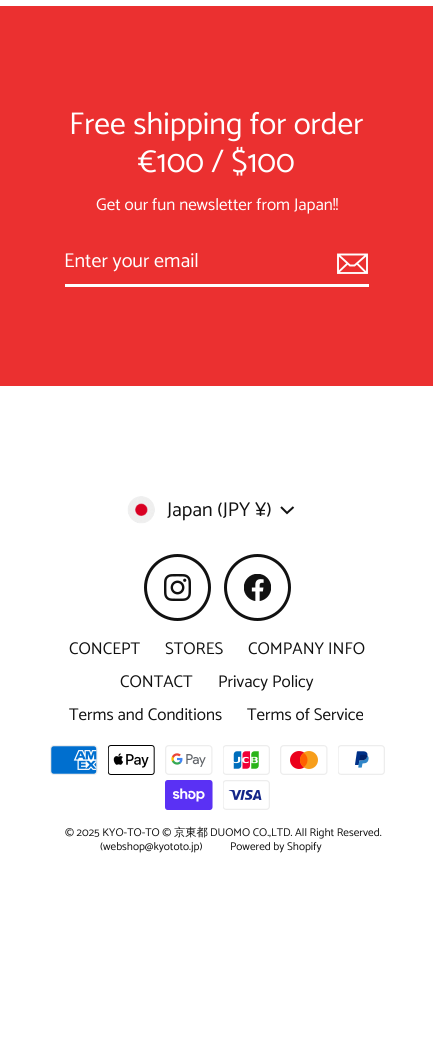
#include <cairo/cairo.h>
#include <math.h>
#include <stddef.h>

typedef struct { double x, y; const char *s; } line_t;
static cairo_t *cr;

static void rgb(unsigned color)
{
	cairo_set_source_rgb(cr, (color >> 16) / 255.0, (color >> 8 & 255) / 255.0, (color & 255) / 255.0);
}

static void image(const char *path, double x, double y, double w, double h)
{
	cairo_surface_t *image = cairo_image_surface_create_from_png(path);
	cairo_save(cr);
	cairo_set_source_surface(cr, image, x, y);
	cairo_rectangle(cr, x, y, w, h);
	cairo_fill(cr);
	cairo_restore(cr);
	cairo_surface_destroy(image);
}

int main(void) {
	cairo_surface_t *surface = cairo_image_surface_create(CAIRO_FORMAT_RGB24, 433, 1039);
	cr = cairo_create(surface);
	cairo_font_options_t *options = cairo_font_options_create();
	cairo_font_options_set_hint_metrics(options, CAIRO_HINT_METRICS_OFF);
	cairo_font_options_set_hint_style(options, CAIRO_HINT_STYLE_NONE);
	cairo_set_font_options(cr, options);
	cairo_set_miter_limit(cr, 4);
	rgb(0xffffff);
	cairo_paint(cr);
	rgb(0xeb3030);
	cairo_rectangle(cr, 0, 6, 433, 380);
	cairo_fill(cr);
	rgb(0xffffff);
	cairo_rectangle(cr, 65, 284, 304, 3);
	cairo_fill(cr);
	cairo_new_path(cr);
	cairo_move_to(cr, 367, 273);
	cairo_line_to(cr, 338, 273);
	cairo_line_to(cr, 338, 254.5);
	cairo_line_to(cr, 367, 254.5);
	cairo_close_path(cr);
	cairo_move_to(cr, 338, 254.5);
	cairo_line_to(cr, 350, 265.5);
	cairo_line_to(cr, 354.5, 265.5);
	cairo_line_to(cr, 367, 254.5);
	cairo_move_to(cr, 347.5, 263.5);
	cairo_line_to(cr, 338, 272.5);
	cairo_move_to(cr, 366.5, 273);
	cairo_line_to(cr, 357, 263.5);
	cairo_set_line_width(cr, 1.9);
	cairo_stroke(cr);
	image("img/1.png", 127, 496, 28, 28);
	cairo_new_path(cr);
	cairo_move_to(cr, 281, 507);
	cairo_line_to(cr, 287, 513);
	cairo_line_to(cr, 293.5, 507);
	rgb(0x111111);
	cairo_set_line_width(cr, 2);
	cairo_stroke(cr);
	cairo_arc(cr, 177.5, 587.5, 32, 0, 2 * M_PI);
	cairo_set_line_width(cr, 3);
	cairo_stroke(cr);
	image("img/2.png", 164, 574, 27, 27);
	cairo_arc(cr, 257.5, 587.5, 32, 0, 2 * M_PI);
	cairo_stroke(cr);
	image("img/3.png", 244, 574, 27, 27);
	image("img/4.png", 50, 745, 48, 30);
	image("img/5.png", 108, 745, 47, 30);
	image("img/6.png", 165, 745, 48, 30);
	image("img/7.png", 223, 745, 47, 30);
	image("img/8.png", 280, 745, 48, 30);
	image("img/9.png", 338, 745, 47, 30);
	image("img/10.png", 165, 780, 48, 30);
	image("img/11.png", 223, 780, 47, 30);
	cairo_select_font_face(cr, "Catamaran", CAIRO_FONT_SLANT_NORMAL, CAIRO_FONT_WEIGHT_NORMAL);
	cairo_set_font_size(cr, 31.5);
	rgb(0xffffff);
	cairo_move_to(cr, 69, 134);
	cairo_show_text(cr, "Free shipping for order");
	cairo_move_to(cr, 138, 172);
	cairo_show_text(cr, "€100 / $100");
	cairo_set_font_size(cr, 17);
	cairo_move_to(cr, 96, 210);
	cairo_show_text(cr, "Get our fun newsletter from Japan!!");
	cairo_set_font_size(cr, 20);
	cairo_move_to(cr, 64, 267);
	cairo_show_text(cr, "Enter your email");
	rgb(0x111111);
	cairo_move_to(cr, 167, 516);
	cairo_show_text(cr, "Japan (JPY ¥)");
	cairo_set_font_size(cr, 17);
	{
		static const line_t items[] = {
			{69, 654, "CONCEPT"},
			{165, 654, "STORES"},
			{248, 654, "COMPANY INFO"},
			{120, 687, "CONTACT"},
			{218, 687, "Privacy Policy"},
			{69, 720, "Terms and Conditions"},
			{247, 720, "Terms of Service"},
		};
		for (size_t i = 0; i < sizeof items / sizeof *items; i++) {
			cairo_move_to(cr, items[i].x, items[i].y);
			cairo_show_text(cr, items[i].s);
		}
	}
	cairo_set_font_size(cr, 11.25);
	cairo_move_to(cr, 65, 836);
	cairo_show_text(cr, "© 2025 KYO-TO-TO ©");
	cairo_select_font_face(cr, "WenQuanYi Zen Hei Medium", CAIRO_FONT_SLANT_NORMAL, CAIRO_FONT_WEIGHT_NORMAL);
	cairo_move_to(cr, 174, 836);
	cairo_show_text(cr, "京東都");
	cairo_select_font_face(cr, "Catamaran", CAIRO_FONT_SLANT_NORMAL, CAIRO_FONT_WEIGHT_NORMAL);
	{
		static const line_t items[] = {
			{210, 836, "DUOMO CO.,LTD. All Right Reserved."},
			{100, 850, "(webshop@kyototo.jp)"},
			{230, 850, "Powered by Shopify"},
		};
		for (size_t i = 0; i < sizeof items / sizeof *items; i++) {
			cairo_move_to(cr, items[i].x, items[i].y);
			cairo_show_text(cr, items[i].s);
		}
	}
	cairo_surface_write_to_png(surface, "page.png");
	cairo_font_options_destroy(options);
	cairo_destroy(cr);
	cairo_surface_destroy(surface);
	return 0;
}
